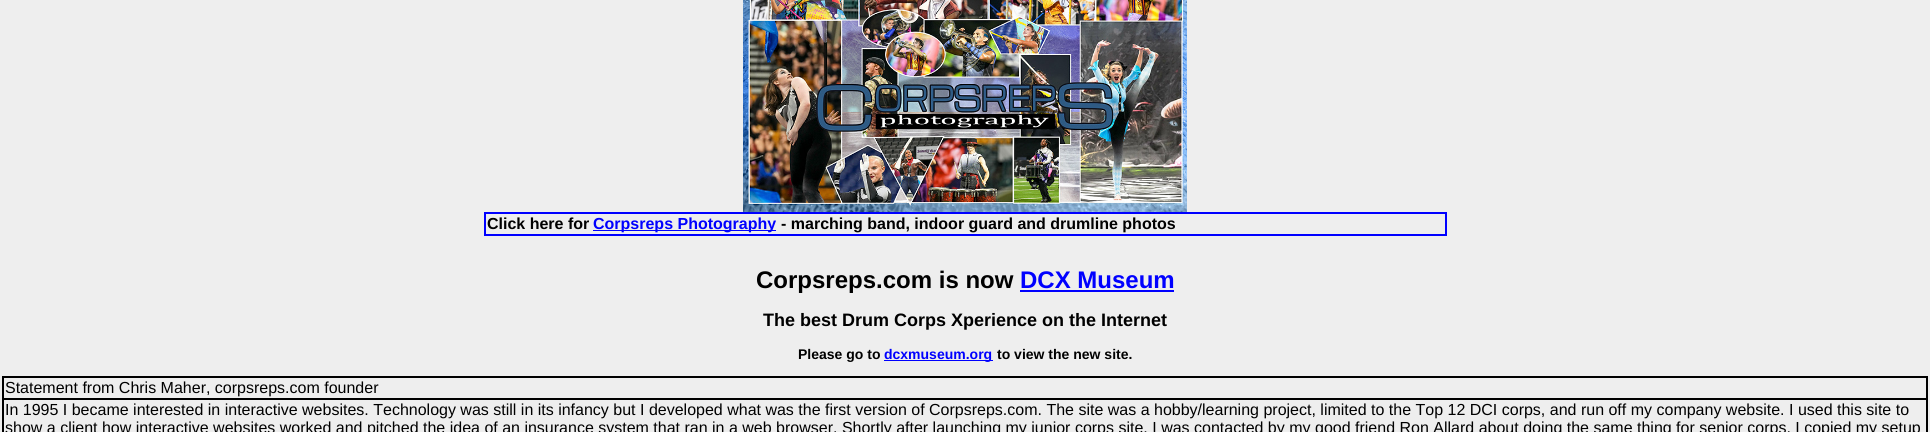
#include <cairo/cairo.h>
#include <math.h>
#include <stddef.h>

typedef struct { double x, y; const char *s; } line_t;
typedef struct { double x, y, w, h; unsigned color; } box_t;
static cairo_t *cr;

static void rgb(unsigned color)
{
	cairo_set_source_rgb(cr, (color >> 16) / 255.0, (color >> 8 & 255) / 255.0, (color & 255) / 255.0);
}

static void image(const char *path, double x, double y, double w, double h)
{
	cairo_surface_t *image = cairo_image_surface_create_from_png(path);
	cairo_save(cr);
	cairo_set_source_surface(cr, image, x, y);
	cairo_rectangle(cr, x, y, w, h);
	cairo_fill(cr);
	cairo_restore(cr);
	cairo_surface_destroy(image);
}

int main(void) {
	cairo_surface_t *surface = cairo_image_surface_create(CAIRO_FORMAT_RGB24, 1930, 432);
	cr = cairo_create(surface);
	cairo_font_options_t *options = cairo_font_options_create();
	cairo_font_options_set_hint_metrics(options, CAIRO_HINT_METRICS_OFF);
	cairo_font_options_set_hint_style(options, CAIRO_HINT_STYLE_NONE);
	cairo_set_font_options(cr, options);
	cairo_set_miter_limit(cr, 4);
	rgb(0xeeeeee);
	cairo_paint(cr);
	image("img/1.png", 743, 0, 444, 212);
	cairo_rectangle(cr, 484.5, 212.5, 962, 23);
	rgb(0x0000ff);
	cairo_set_line_width(cr, 1);
	cairo_stroke(cr);
	cairo_rectangle(cr, 485.5, 213.5, 960, 21);
	cairo_stroke(cr);
	{
		static const box_t items[] = {
			{593, 230, 183, 1, 0x0000ff},
			{1020, 290, 154, 2, 0x0000ff},
			{884, 360, 109, 1, 0x0000ff},
		};
		for (size_t i = 0; i < sizeof items / sizeof *items; i++) {
			rgb(items[i].color);
			cairo_rectangle(cr, items[i].x, items[i].y, items[i].w, items[i].h);
			cairo_fill(cr);
		}
	}
	cairo_rectangle(cr, 2.5, 376.5, 1925, 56);
	rgb(0x000000);
	cairo_stroke(cr);
	cairo_rectangle(cr, 3.5, 377.5, 1923, 21);
	cairo_stroke(cr);
	cairo_rectangle(cr, 3.5, 399.5, 1923, 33);
	cairo_stroke(cr);
	cairo_select_font_face(cr, "Liberation Sans", CAIRO_FONT_SLANT_NORMAL, CAIRO_FONT_WEIGHT_BOLD);
	cairo_set_font_size(cr, 16);
	cairo_move_to(cr, 487, 229);
	cairo_show_text(cr, "Click here for");
	rgb(0x0000ff);
	cairo_move_to(cr, 593, 229);
	cairo_show_text(cr, "Corpsreps Photography");
	rgb(0x000000);
	cairo_move_to(cr, 781, 229);
	cairo_show_text(cr, "- marching band, indoor guard and drumline photos");
	cairo_set_font_size(cr, 24);
	cairo_move_to(cr, 756, 288);
	cairo_show_text(cr, "Corpsreps.com is now");
	rgb(0x0000ff);
	cairo_move_to(cr, 1020, 288);
	cairo_show_text(cr, "DCX Museum");
	cairo_set_font_size(cr, 18);
	rgb(0x000000);
	cairo_move_to(cr, 763, 326);
	cairo_show_text(cr, "The best Drum Corps Xperience on the Internet");
	cairo_set_font_size(cr, 14);
	cairo_move_to(cr, 798, 359);
	cairo_show_text(cr, "Please go to");
	rgb(0x0000ff);
	cairo_move_to(cr, 884, 359);
	cairo_show_text(cr, "dcxmuseum.org");
	rgb(0x000000);
	cairo_move_to(cr, 997, 359);
	cairo_show_text(cr, "to view the new site.");
	cairo_select_font_face(cr, "Liberation Sans", CAIRO_FONT_SLANT_NORMAL, CAIRO_FONT_WEIGHT_NORMAL);
	cairo_set_font_size(cr, 16);
	{
		static const line_t items[] = {
			{5, 393, "Statement from Chris Maher, corpsreps.com founder"},
			{5, 415, "In 1995 I became interested in interactive websites. Technology was still in its infancy but I developed what was the first version of Corpsreps.com. The site was a hobby/learning project, limited to the Top 12 DCI corps, and run off my company website. I used this site to"},
			{5, 433, "show a client how interactive websites worked and pitched the idea of an insurance system that ran in a web browser. Shortly after launching my junior corps site, I was contacted by my good friend Ron Allard about doing the same thing for senior corps. I copied my setup"},
		};
		for (size_t i = 0; i < sizeof items / sizeof *items; i++) {
			cairo_move_to(cr, items[i].x, items[i].y);
			cairo_show_text(cr, items[i].s);
		}
	}
	cairo_surface_write_to_png(surface, "page.png");
	cairo_font_options_destroy(options);
	cairo_destroy(cr);
	cairo_surface_destroy(surface);
	return 0;
}
